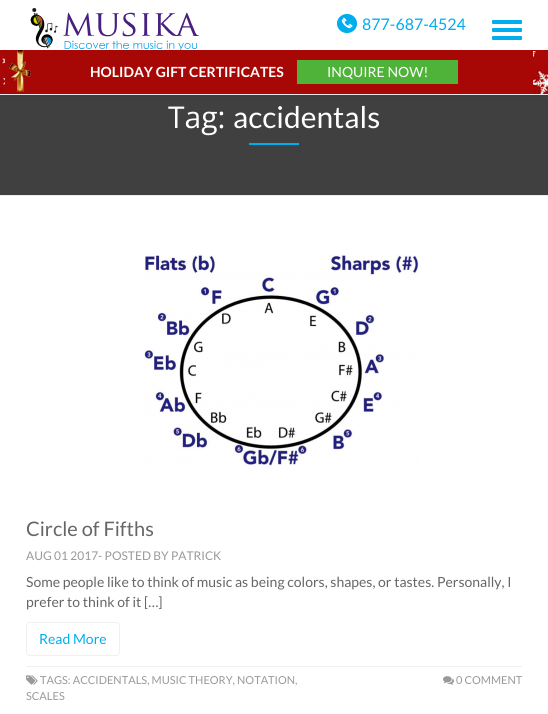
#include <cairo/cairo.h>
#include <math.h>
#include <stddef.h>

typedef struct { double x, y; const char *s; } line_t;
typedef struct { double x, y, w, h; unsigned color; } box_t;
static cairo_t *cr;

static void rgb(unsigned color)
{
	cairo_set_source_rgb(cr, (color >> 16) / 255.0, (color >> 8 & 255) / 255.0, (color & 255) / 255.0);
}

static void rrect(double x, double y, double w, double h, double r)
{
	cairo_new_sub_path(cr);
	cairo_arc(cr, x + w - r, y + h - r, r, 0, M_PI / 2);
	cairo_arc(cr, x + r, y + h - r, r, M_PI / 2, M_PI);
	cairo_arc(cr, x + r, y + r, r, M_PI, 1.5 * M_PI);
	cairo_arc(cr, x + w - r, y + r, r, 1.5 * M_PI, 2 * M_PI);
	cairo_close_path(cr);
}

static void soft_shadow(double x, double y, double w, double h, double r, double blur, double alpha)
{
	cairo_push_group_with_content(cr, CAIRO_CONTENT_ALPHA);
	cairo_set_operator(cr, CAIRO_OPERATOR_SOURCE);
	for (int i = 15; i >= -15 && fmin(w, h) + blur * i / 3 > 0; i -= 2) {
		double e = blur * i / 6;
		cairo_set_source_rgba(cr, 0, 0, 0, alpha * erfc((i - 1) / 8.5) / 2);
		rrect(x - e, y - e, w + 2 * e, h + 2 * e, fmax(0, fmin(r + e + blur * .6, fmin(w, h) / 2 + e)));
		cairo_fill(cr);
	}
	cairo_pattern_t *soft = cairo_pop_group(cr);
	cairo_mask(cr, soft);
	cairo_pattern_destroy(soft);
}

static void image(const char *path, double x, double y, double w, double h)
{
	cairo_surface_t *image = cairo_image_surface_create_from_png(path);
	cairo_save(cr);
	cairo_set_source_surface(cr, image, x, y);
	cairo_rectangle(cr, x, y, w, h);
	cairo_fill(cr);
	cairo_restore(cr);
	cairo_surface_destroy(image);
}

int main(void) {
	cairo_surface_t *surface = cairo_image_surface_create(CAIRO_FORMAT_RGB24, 548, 714);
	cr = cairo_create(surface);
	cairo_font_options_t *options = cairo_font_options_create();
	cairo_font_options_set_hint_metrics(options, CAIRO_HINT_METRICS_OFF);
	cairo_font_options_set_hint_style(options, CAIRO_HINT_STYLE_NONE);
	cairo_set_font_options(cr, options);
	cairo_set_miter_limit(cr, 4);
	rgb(0xffffff);
	cairo_paint(cr);
	rgb(0x404040);
	cairo_rectangle(cr, 0, 95, 548, 100);
	cairo_fill(cr);
	rgb(0x000000);
	soft_shadow(0, 1, 548, 95, 0, 2.5, 0.07);
	rgb(0xffffff);
	cairo_rectangle(cr, 0, 0, 548, 50);
	cairo_fill(cr);
	rgb(0xe7e7e7);
	cairo_rectangle(cr, 0, 94, 548, 1);
	cairo_fill(cr);
	image("img/1.png", 30, 8, 170, 42);
	image("img/2.png", 337, 14, 20, 19);
	rgb(0x00aeef);
	rrect(492, 20, 30, 4, 1);
	cairo_fill(cr);
	rrect(492, 28, 30, 4, 1);
	cairo_fill(cr);
	rrect(492, 36, 30, 4, 1);
	cairo_fill(cr);
	rgb(0xa70805);
	cairo_rectangle(cr, 0, 50, 548, 1);
	cairo_fill(cr);
	image("img/3.png", 0, 51, 548, 43);
	cairo_rectangle(cr, 15, 51, 518, 43);
	cairo_fill(cr);
	cairo_rectangle(cr, 5, 51, 10, 41);
	cairo_fill(cr);
	image("img/4.png", 9, 50, 22, 42);
	{
		static const box_t items[] = {
			{297, 60, 161, 24, 0x4fb339},
			{0, 195, 548, 1, 0xeeeeee},
			{249, 143, 50, 2, 0x00aeef},
		};
		for (size_t i = 0; i < sizeof items / sizeof *items; i++) {
			rgb(items[i].color);
			cairo_rectangle(cr, items[i].x, items[i].y, items[i].w, items[i].h);
			cairo_fill(cr);
		}
	}
	image("img/5.png", 144, 255, 275, 214);
	rrect(26.5, 622.5, 93, 33, 3.5);
	rgb(0xf0f0f0);
	cairo_set_line_width(cr, 1);
	cairo_stroke(cr);
	cairo_rectangle(cr, 26, 666, 496, 1);
	cairo_fill(cr);
	image("img/6.png", 26, 675, 12, 10);
	image("img/7.png", 443, 676, 11, 9);
	cairo_select_font_face(cr, "Lato", CAIRO_FONT_SLANT_NORMAL, CAIRO_FONT_WEIGHT_NORMAL);
	cairo_set_font_size(cr, 16);
	rgb(0x00aeef);
	cairo_move_to(cr, 362, 30);
	cairo_show_text(cr, "877-687-4524");
	cairo_select_font_face(cr, "Lato", CAIRO_FONT_SLANT_NORMAL, CAIRO_FONT_WEIGHT_BOLD);
	cairo_set_font_size(cr, 14);
	rgb(0xffffff);
	cairo_move_to(cr, 90, 77);
	cairo_show_text(cr, "HOLIDAY GIFT CERTIFICATES");
	cairo_select_font_face(cr, "Lato", CAIRO_FONT_SLANT_NORMAL, CAIRO_FONT_WEIGHT_NORMAL);
	cairo_move_to(cr, 327, 77);
	cairo_show_text(cr, "INQUIRE NOW!");
	cairo_select_font_face(cr, "Open Sans", CAIRO_FONT_SLANT_NORMAL, CAIRO_FONT_WEIGHT_NORMAL);
	cairo_set_font_size(cr, 30);
	cairo_move_to(cr, 168, 128);
	cairo_show_text(cr, "Tag:");
	cairo_select_font_face(cr, "Lato", CAIRO_FONT_SLANT_NORMAL, CAIRO_FONT_WEIGHT_NORMAL);
	cairo_move_to(cr, 233, 128);
	cairo_show_text(cr, "accidentals");
	cairo_set_font_size(cr, 20);
	rgb(0x666666);
	cairo_move_to(cr, 26, 536);
	cairo_show_text(cr, "Circle of Fifths");
	cairo_set_font_size(cr, 12);
	rgb(0x999999);
	cairo_move_to(cr, 26, 560);
	cairo_show_text(cr, "AUG 01 2017- POSTED BY PATRICK");
	cairo_set_font_size(cr, 14);
	rgb(0x666666);
	cairo_move_to(cr, 26, 587);
	cairo_show_text(cr, "Some people like to think of music as being colors, shapes, or tastes. Personally, I");
	cairo_move_to(cr, 26, 607);
	cairo_show_text(cr, "prefer to think of it […]");
	rgb(0x00aeef);
	cairo_move_to(cr, 39, 644);
	cairo_show_text(cr, "Read More");
	cairo_set_font_size(cr, 11);
	rgb(0x999999);
	{
		static const line_t items[] = {
			{40, 684, "TAGS: ACCIDENTALS, MUSIC THEORY, NOTATION,"},
			{26, 700, "SCALES"},
			{456, 684, "0 COMMENT"},
		};
		for (size_t i = 0; i < sizeof items / sizeof *items; i++) {
			cairo_move_to(cr, items[i].x, items[i].y);
			cairo_show_text(cr, items[i].s);
		}
	}
	cairo_surface_write_to_png(surface, "page.png");
	cairo_font_options_destroy(options);
	cairo_destroy(cr);
	cairo_surface_destroy(surface);
	return 0;
}
